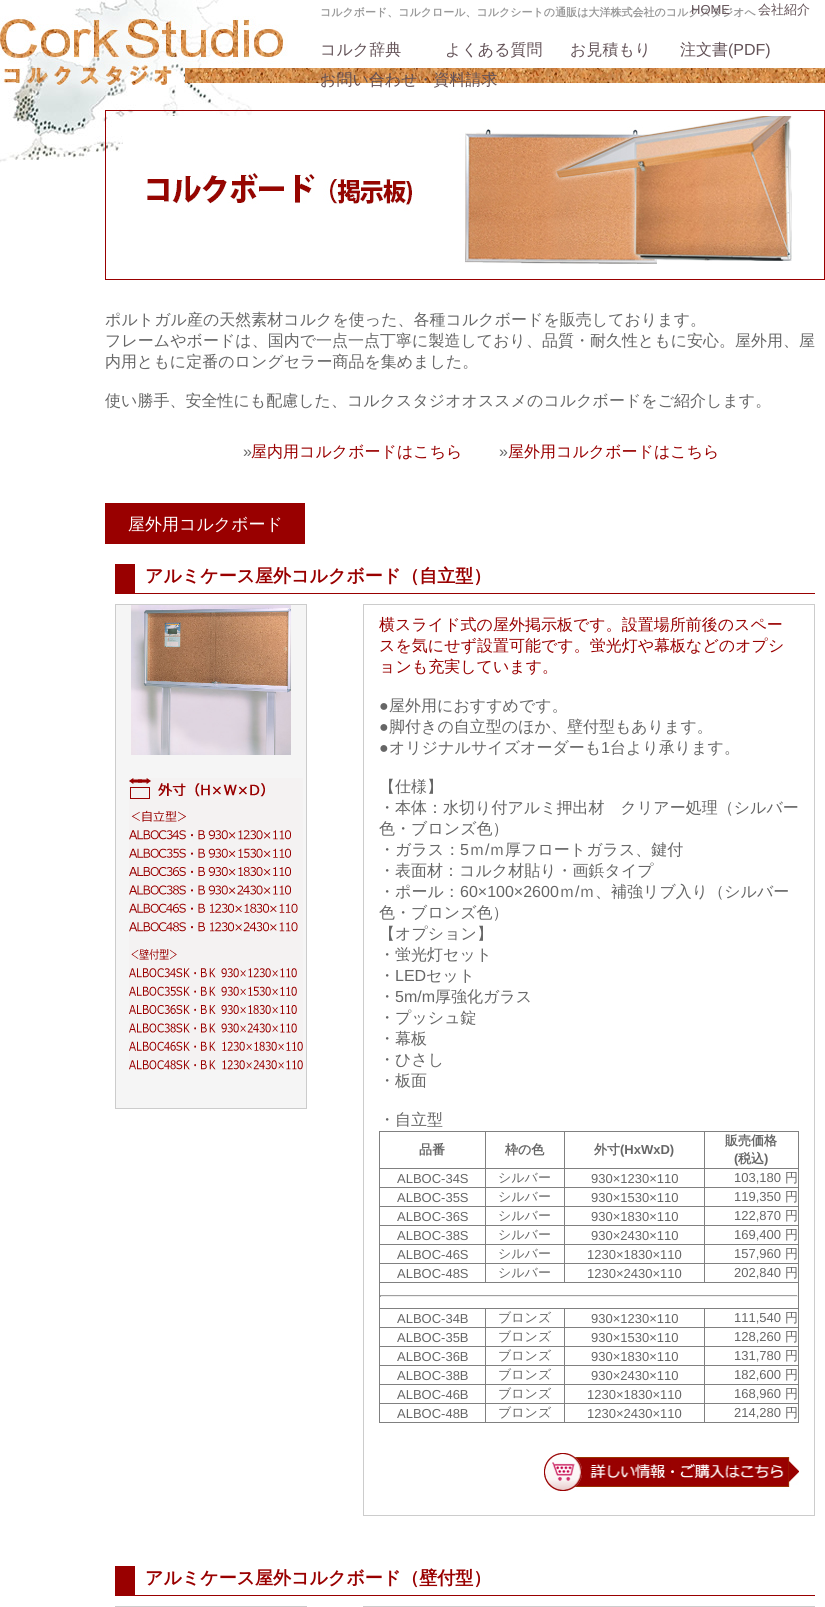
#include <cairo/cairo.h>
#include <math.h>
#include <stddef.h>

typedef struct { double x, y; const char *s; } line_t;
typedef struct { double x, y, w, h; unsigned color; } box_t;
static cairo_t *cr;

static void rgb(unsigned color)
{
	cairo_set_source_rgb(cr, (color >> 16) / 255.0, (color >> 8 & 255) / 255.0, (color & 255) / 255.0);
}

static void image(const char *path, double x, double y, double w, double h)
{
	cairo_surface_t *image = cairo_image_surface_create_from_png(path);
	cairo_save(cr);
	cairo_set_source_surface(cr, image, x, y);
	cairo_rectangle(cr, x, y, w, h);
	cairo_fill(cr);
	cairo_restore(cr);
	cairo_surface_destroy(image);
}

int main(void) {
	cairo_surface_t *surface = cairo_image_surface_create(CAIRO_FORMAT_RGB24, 825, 1607);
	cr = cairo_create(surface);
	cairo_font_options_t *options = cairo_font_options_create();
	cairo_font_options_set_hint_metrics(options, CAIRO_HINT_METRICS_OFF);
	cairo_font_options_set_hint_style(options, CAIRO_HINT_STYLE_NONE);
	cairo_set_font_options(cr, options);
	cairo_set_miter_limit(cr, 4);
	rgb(0xffffff);
	cairo_paint(cr);
	image("img/1.png", 0, 85, 252, 78);
	image("img/2.png", 0, 68, 825, 17);
	image("img/3.png", 0, 0, 288, 68);
	cairo_rectangle(cr, 105.5, 110.5, 719, 169);
	rgb(0x990000);
	cairo_set_line_width(cr, 1);
	cairo_stroke(cr);
	image("img/4.png", 123, 116, 669, 148);
	{
		static const box_t items[] = {
			{105, 503, 200, 41, 0x990000},
			{135, 593, 680, 1, 0x990000},
			{115, 564, 20, 30, 0x990000},
		};
		for (size_t i = 0; i < sizeof items / sizeof *items; i++) {
			rgb(items[i].color);
			cairo_rectangle(cr, items[i].x, items[i].y, items[i].w, items[i].h);
			cairo_fill(cr);
		}
	}
	rgb(0xf5f5f5);
	cairo_rectangle(cr, 115.5, 604.5, 191, 504);
	cairo_fill_preserve(cr);
	rgb(0xcccccc);
	cairo_stroke(cr);
	image("img/5.png", 131, 605, 160, 150);
	image("img/6.png", 129, 778, 174, 292);
	cairo_rectangle(cr, 363.5, 604.5, 451, 911);
	cairo_stroke(cr);
	{
		static const box_t items[] = {
			{379, 1131, 420, 1, 0x808080},
			{798, 1131, 1, 292, 0x808080},
			{379, 1422, 420, 1, 0x808080},
			{379, 1131, 1, 292, 0x808080},
			{704, 1168, 95, 1, 0x808080},
			{704, 1187, 95, 1, 0x808080},
			{704, 1206, 95, 1, 0x808080},
			{704, 1225, 95, 1, 0x808080},
			{704, 1244, 95, 1, 0x808080},
			{704, 1263, 95, 1, 0x808080},
			{379, 1282, 420, 1, 0x808080},
			{704, 1263, 1, 20, 0x808080},
			{564, 1263, 141, 1, 0x808080},
			{704, 1244, 1, 20, 0x808080},
			{564, 1244, 141, 1, 0x808080},
			{704, 1225, 1, 20, 0x808080},
			{564, 1225, 141, 1, 0x808080},
			{704, 1206, 1, 20, 0x808080},
			{564, 1206, 141, 1, 0x808080},
			{704, 1187, 1, 20, 0x808080},
			{564, 1187, 141, 1, 0x808080},
			{704, 1168, 1, 20, 0x808080},
			{564, 1168, 141, 1, 0x808080},
			{564, 1263, 1, 20, 0x808080},
			{485, 1263, 80, 1, 0x808080},
			{564, 1244, 1, 20, 0x808080},
			{485, 1244, 80, 1, 0x808080},
			{564, 1225, 1, 20, 0x808080},
			{485, 1225, 80, 1, 0x808080},
			{564, 1206, 1, 20, 0x808080},
			{485, 1206, 80, 1, 0x808080},
			{564, 1187, 1, 20, 0x808080},
			{485, 1187, 80, 1, 0x808080},
			{564, 1168, 1, 20, 0x808080},
			{485, 1168, 80, 1, 0x808080},
			{485, 1263, 1, 20, 0x808080},
			{379, 1263, 107, 1, 0x808080},
			{485, 1244, 1, 20, 0x808080},
			{379, 1244, 107, 1, 0x808080},
			{485, 1225, 1, 20, 0x808080},
			{379, 1225, 107, 1, 0x808080},
			{485, 1206, 1, 20, 0x808080},
			{379, 1206, 107, 1, 0x808080},
			{485, 1187, 1, 20, 0x808080},
			{379, 1187, 107, 1, 0x808080},
			{485, 1168, 1, 20, 0x808080},
			{379, 1168, 107, 1, 0x808080},
			{485, 1131, 1, 38, 0x808080},
			{564, 1131, 1, 38, 0x808080},
			{704, 1131, 1, 38, 0x808080},
			{380, 1295, 418, 1, 0x9f9f9f},
			{797, 1295, 1, 2, 0xeeeeee},
			{380, 1296, 418, 1, 0xeeeeee},
			{380, 1295, 1, 2, 0x9f9f9f},
			{704, 1308, 95, 1, 0x808080},
			{704, 1327, 95, 1, 0x808080},
			{704, 1346, 95, 1, 0x808080},
			{704, 1365, 95, 1, 0x808080},
			{704, 1384, 95, 1, 0x808080},
			{704, 1403, 95, 1, 0x808080},
			{704, 1403, 1, 20, 0x808080},
			{564, 1403, 141, 1, 0x808080},
			{704, 1384, 1, 20, 0x808080},
			{564, 1384, 141, 1, 0x808080},
			{704, 1365, 1, 20, 0x808080},
			{564, 1365, 141, 1, 0x808080},
			{704, 1346, 1, 20, 0x808080},
			{564, 1346, 141, 1, 0x808080},
			{704, 1327, 1, 20, 0x808080},
			{564, 1327, 141, 1, 0x808080},
			{704, 1308, 1, 20, 0x808080},
			{564, 1308, 141, 1, 0x808080},
			{564, 1403, 1, 20, 0x808080},
			{485, 1403, 80, 1, 0x808080},
			{564, 1384, 1, 20, 0x808080},
			{485, 1384, 80, 1, 0x808080},
			{564, 1365, 1, 20, 0x808080},
			{485, 1365, 80, 1, 0x808080},
			{564, 1346, 1, 20, 0x808080},
			{485, 1346, 80, 1, 0x808080},
			{564, 1327, 1, 20, 0x808080},
			{485, 1327, 80, 1, 0x808080},
			{564, 1308, 1, 20, 0x808080},
			{485, 1308, 80, 1, 0x808080},
			{485, 1403, 1, 20, 0x808080},
			{379, 1403, 107, 1, 0x808080},
			{485, 1384, 1, 20, 0x808080},
			{379, 1384, 107, 1, 0x808080},
			{485, 1365, 1, 20, 0x808080},
			{379, 1365, 107, 1, 0x808080},
			{485, 1346, 1, 20, 0x808080},
			{379, 1346, 107, 1, 0x808080},
			{485, 1327, 1, 20, 0x808080},
			{379, 1327, 107, 1, 0x808080},
			{485, 1308, 1, 20, 0x808080},
			{379, 1308, 107, 1, 0x808080},
		};
		for (size_t i = 0; i < sizeof items / sizeof *items; i++) {
			rgb(items[i].color);
			cairo_rectangle(cr, items[i].x, items[i].y, items[i].w, items[i].h);
			cairo_fill(cr);
		}
	}
	image("img/7.png", 544, 1453, 255, 38);
	rgb(0x990000);
	cairo_rectangle(cr, 135, 1595, 680, 1);
	cairo_fill(cr);
	cairo_rectangle(cr, 115, 1566, 20, 30);
	cairo_fill(cr);
	cairo_rectangle(cr, 115.5, 1606.5, 191, 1);
	rgb(0xcccccc);
	cairo_stroke(cr);
	cairo_rectangle(cr, 363.5, 1606.5, 451, 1);
	cairo_stroke(cr);
	cairo_select_font_face(cr, "WenQuanYi Zen Hei Medium", CAIRO_FONT_SLANT_NORMAL, CAIRO_FONT_WEIGHT_NORMAL);
	cairo_set_font_size(cr, 13);
	rgb(0x635257);
	cairo_move_to(cr, 758, 14);
	cairo_show_text(cr, "会社紹介");
	cairo_select_font_face(cr, "WenQuanYi Zen Hei", CAIRO_FONT_SLANT_NORMAL, CAIRO_FONT_WEIGHT_BOLD);
	cairo_set_font_size(cr, 11);
	rgb(0x999999);
	cairo_move_to(cr, 320, 16);
	cairo_show_text(cr, "コルクボード、コルクロール、コルクシートの通販は大洋株式会社のコルクスタジオへ");
	cairo_select_font_face(cr, "Liberation Sans", CAIRO_FONT_SLANT_NORMAL, CAIRO_FONT_WEIGHT_NORMAL);
	cairo_set_font_size(cr, 13);
	rgb(0x635257);
	cairo_move_to(cr, 691, 14);
	cairo_show_text(cr, "HOME");
	cairo_select_font_face(cr, "WenQuanYi Zen Hei Medium", CAIRO_FONT_SLANT_NORMAL, CAIRO_FONT_WEIGHT_NORMAL);
	cairo_set_font_size(cr, 16);
	{
		static const line_t items[] = {
			{320, 55, "コルク辞典"},
			{445, 55, "よくある質問"},
			{570, 55, "お見積もり"},
			{680, 55, "注文書"},
		};
		for (size_t i = 0; i < sizeof items / sizeof *items; i++) {
			cairo_move_to(cr, items[i].x, items[i].y);
			cairo_show_text(cr, items[i].s);
		}
	}
	cairo_select_font_face(cr, "Liberation Sans", CAIRO_FONT_SLANT_NORMAL, CAIRO_FONT_WEIGHT_NORMAL);
	cairo_move_to(cr, 728, 55);
	cairo_show_text(cr, "(PDF)");
	cairo_select_font_face(cr, "WenQuanYi Zen Hei Medium", CAIRO_FONT_SLANT_NORMAL, CAIRO_FONT_WEIGHT_NORMAL);
	cairo_move_to(cr, 320, 85);
	cairo_show_text(cr, "お問い合わせ・資料請求");
	rgb(0x666666);
	{
		static const line_t items[] = {
			{105, 325, "ポルトガル産の天然素材コルクを使った、各種コルクボードを販売しております。"},
			{105, 346, "フレームやボードは、国内で一点一点丁寧に製造しており、品質・耐久性ともに安心。屋外用、屋"},
			{105, 367, "内用ともに定番のロングセラー商品を集めました。"},
			{105, 406, "使い勝手、安全性にも配慮した、コルクスタジオオススメのコルクボードをご紹介します。"},
		};
		for (size_t i = 0; i < sizeof items / sizeof *items; i++) {
			cairo_move_to(cr, items[i].x, items[i].y);
			cairo_show_text(cr, items[i].s);
		}
	}
	cairo_select_font_face(cr, "Liberation Sans", CAIRO_FONT_SLANT_NORMAL, CAIRO_FONT_WEIGHT_NORMAL);
	cairo_move_to(cr, 243, 457);
	cairo_show_text(cr, "»");
	cairo_select_font_face(cr, "WenQuanYi Zen Hei Medium", CAIRO_FONT_SLANT_NORMAL, CAIRO_FONT_WEIGHT_NORMAL);
	rgb(0x990000);
	cairo_move_to(cr, 251, 457);
	cairo_show_text(cr, "屋内用コルクボードはこちら");
	cairo_select_font_face(cr, "Liberation Sans", CAIRO_FONT_SLANT_NORMAL, CAIRO_FONT_WEIGHT_NORMAL);
	rgb(0x666666);
	cairo_move_to(cr, 499, 457);
	cairo_show_text(cr, "»");
	cairo_select_font_face(cr, "WenQuanYi Zen Hei Medium", CAIRO_FONT_SLANT_NORMAL, CAIRO_FONT_WEIGHT_NORMAL);
	rgb(0x990000);
	cairo_move_to(cr, 508, 457);
	cairo_show_text(cr, "屋外用コルクボードはこちら");
	cairo_set_font_size(cr, 17);
	rgb(0xffffff);
	cairo_move_to(cr, 128, 530);
	cairo_show_text(cr, "屋外用コルクボード");
	cairo_select_font_face(cr, "WenQuanYi Zen Hei", CAIRO_FONT_SLANT_NORMAL, CAIRO_FONT_WEIGHT_BOLD);
	cairo_set_font_size(cr, 18);
	rgb(0x990000);
	cairo_move_to(cr, 145, 582);
	cairo_show_text(cr, "アルミケース屋外コルクボード（自立型）");
	cairo_select_font_face(cr, "WenQuanYi Zen Hei Medium", CAIRO_FONT_SLANT_NORMAL, CAIRO_FONT_WEIGHT_NORMAL);
	cairo_set_font_size(cr, 16);
	{
		static const line_t items[] = {
			{379, 630, "横スライド式の屋外掲示板です。設置場所前後のスペー"},
			{379, 651, "スを気にせず設置可能です。蛍光灯や幕板などのオプシ"},
			{379, 672, "ョンも充実しています。"},
		};
		for (size_t i = 0; i < sizeof items / sizeof *items; i++) {
			cairo_move_to(cr, items[i].x, items[i].y);
			cairo_show_text(cr, items[i].s);
		}
	}
	cairo_select_font_face(cr, "Liberation Sans", CAIRO_FONT_SLANT_NORMAL, CAIRO_FONT_WEIGHT_NORMAL);
	rgb(0x666666);
	cairo_move_to(cr, 379, 711);
	cairo_show_text(cr, "●");
	cairo_select_font_face(cr, "WenQuanYi Zen Hei Medium", CAIRO_FONT_SLANT_NORMAL, CAIRO_FONT_WEIGHT_NORMAL);
	cairo_move_to(cr, 389, 711);
	cairo_show_text(cr, "屋外用におすすめです。");
	cairo_select_font_face(cr, "Liberation Sans", CAIRO_FONT_SLANT_NORMAL, CAIRO_FONT_WEIGHT_NORMAL);
	cairo_move_to(cr, 379, 732);
	cairo_show_text(cr, "●");
	cairo_select_font_face(cr, "WenQuanYi Zen Hei Medium", CAIRO_FONT_SLANT_NORMAL, CAIRO_FONT_WEIGHT_NORMAL);
	cairo_move_to(cr, 389, 732);
	cairo_show_text(cr, "脚付きの自立型のほか、壁付型もあります。");
	cairo_select_font_face(cr, "Liberation Sans", CAIRO_FONT_SLANT_NORMAL, CAIRO_FONT_WEIGHT_NORMAL);
	cairo_move_to(cr, 379, 753);
	cairo_show_text(cr, "●");
	cairo_select_font_face(cr, "WenQuanYi Zen Hei Medium", CAIRO_FONT_SLANT_NORMAL, CAIRO_FONT_WEIGHT_NORMAL);
	cairo_move_to(cr, 389, 753);
	cairo_show_text(cr, "オリジナルサイズオーダーも");
	cairo_select_font_face(cr, "Liberation Sans", CAIRO_FONT_SLANT_NORMAL, CAIRO_FONT_WEIGHT_NORMAL);
	cairo_move_to(cr, 601, 753);
	cairo_show_text(cr, "1");
	cairo_select_font_face(cr, "WenQuanYi Zen Hei Medium", CAIRO_FONT_SLANT_NORMAL, CAIRO_FONT_WEIGHT_NORMAL);
	{
		static const line_t items[] = {
			{610, 753, "台より承ります。"},
			{379, 792, "【仕様】"},
			{379, 813, "・本体：水切り付アルミ押出材　クリアー処理（シルバー"},
			{379, 834, "色・ブロンズ色）"},
			{379, 855, "・ガラス："},
		};
		for (size_t i = 0; i < sizeof items / sizeof *items; i++) {
			cairo_move_to(cr, items[i].x, items[i].y);
			cairo_show_text(cr, items[i].s);
		}
	}
	cairo_select_font_face(cr, "Liberation Sans", CAIRO_FONT_SLANT_NORMAL, CAIRO_FONT_WEIGHT_NORMAL);
	cairo_move_to(cr, 460, 855);
	cairo_show_text(cr, "5");
	cairo_select_font_face(cr, "WenQuanYi Zen Hei Medium", CAIRO_FONT_SLANT_NORMAL, CAIRO_FONT_WEIGHT_NORMAL);
	cairo_move_to(cr, 469, 855);
	cairo_show_text(cr, "ｍ");
	cairo_select_font_face(cr, "Liberation Sans", CAIRO_FONT_SLANT_NORMAL, CAIRO_FONT_WEIGHT_NORMAL);
	cairo_move_to(cr, 485, 855);
	cairo_show_text(cr, "/");
	cairo_select_font_face(cr, "WenQuanYi Zen Hei Medium", CAIRO_FONT_SLANT_NORMAL, CAIRO_FONT_WEIGHT_NORMAL);
	{
		static const line_t items[] = {
			{489, 855, "ｍ厚フロートガラス、鍵付"},
			{379, 876, "・表面材：コルク材貼り・画鋲タイプ"},
			{379, 897, "・ポール："},
		};
		for (size_t i = 0; i < sizeof items / sizeof *items; i++) {
			cairo_move_to(cr, items[i].x, items[i].y);
			cairo_show_text(cr, items[i].s);
		}
	}
	cairo_select_font_face(cr, "Liberation Sans", CAIRO_FONT_SLANT_NORMAL, CAIRO_FONT_WEIGHT_NORMAL);
	cairo_move_to(cr, 460, 897);
	cairo_show_text(cr, "60×100×2600");
	cairo_select_font_face(cr, "WenQuanYi Zen Hei Medium", CAIRO_FONT_SLANT_NORMAL, CAIRO_FONT_WEIGHT_NORMAL);
	cairo_move_to(cr, 559, 897);
	cairo_show_text(cr, "ｍ");
	cairo_select_font_face(cr, "Liberation Sans", CAIRO_FONT_SLANT_NORMAL, CAIRO_FONT_WEIGHT_NORMAL);
	cairo_move_to(cr, 575, 897);
	cairo_show_text(cr, "/");
	cairo_select_font_face(cr, "WenQuanYi Zen Hei Medium", CAIRO_FONT_SLANT_NORMAL, CAIRO_FONT_WEIGHT_NORMAL);
	{
		static const line_t items[] = {
			{579, 897, "ｍ、補強リブ入り（シルバー"},
			{379, 918, "色・ブロンズ色）"},
			{379, 939, "【オプション】"},
			{379, 960, "・蛍光灯セット"},
			{379, 981, "・"},
		};
		for (size_t i = 0; i < sizeof items / sizeof *items; i++) {
			cairo_move_to(cr, items[i].x, items[i].y);
			cairo_show_text(cr, items[i].s);
		}
	}
	cairo_select_font_face(cr, "Liberation Sans", CAIRO_FONT_SLANT_NORMAL, CAIRO_FONT_WEIGHT_NORMAL);
	cairo_move_to(cr, 395, 981);
	cairo_show_text(cr, "LED");
	cairo_select_font_face(cr, "WenQuanYi Zen Hei Medium", CAIRO_FONT_SLANT_NORMAL, CAIRO_FONT_WEIGHT_NORMAL);
	cairo_move_to(cr, 426, 981);
	cairo_show_text(cr, "セット");
	cairo_move_to(cr, 379, 1002);
	cairo_show_text(cr, "・");
	cairo_select_font_face(cr, "Liberation Sans", CAIRO_FONT_SLANT_NORMAL, CAIRO_FONT_WEIGHT_NORMAL);
	cairo_move_to(cr, 395, 1002);
	cairo_show_text(cr, "5m/m");
	cairo_select_font_face(cr, "WenQuanYi Zen Hei Medium", CAIRO_FONT_SLANT_NORMAL, CAIRO_FONT_WEIGHT_NORMAL);
	{
		static const line_t items[] = {
			{435, 1002, "厚強化ガラス"},
			{379, 1023, "・プッシュ錠"},
			{379, 1044, "・幕板"},
			{379, 1065, "・ひさし"},
			{379, 1086, "・板面"},
			{379, 1125, "・自立型"},
		};
		for (size_t i = 0; i < sizeof items / sizeof *items; i++) {
			cairo_move_to(cr, items[i].x, items[i].y);
			cairo_show_text(cr, items[i].s);
		}
	}
	cairo_select_font_face(cr, "WenQuanYi Zen Hei", CAIRO_FONT_SLANT_NORMAL, CAIRO_FONT_WEIGHT_BOLD);
	cairo_set_font_size(cr, 13);
	{
		static const line_t items[] = {
			{419, 1154, "品番"},
			{505, 1154, "枠の色"},
			{594, 1154, "外寸"},
		};
		for (size_t i = 0; i < sizeof items / sizeof *items; i++) {
			cairo_move_to(cr, items[i].x, items[i].y);
			cairo_show_text(cr, items[i].s);
		}
	}
	cairo_select_font_face(cr, "Liberation Sans", CAIRO_FONT_SLANT_NORMAL, CAIRO_FONT_WEIGHT_BOLD);
	cairo_move_to(cr, 620, 1154);
	cairo_show_text(cr, "(HxWxD)");
	cairo_select_font_face(cr, "WenQuanYi Zen Hei", CAIRO_FONT_SLANT_NORMAL, CAIRO_FONT_WEIGHT_BOLD);
	cairo_move_to(cr, 725, 1145);
	cairo_show_text(cr, "販売価格");
	cairo_select_font_face(cr, "Liberation Sans", CAIRO_FONT_SLANT_NORMAL, CAIRO_FONT_WEIGHT_BOLD);
	cairo_move_to(cr, 734, 1163);
	cairo_show_text(cr, "(");
	cairo_select_font_face(cr, "WenQuanYi Zen Hei", CAIRO_FONT_SLANT_NORMAL, CAIRO_FONT_WEIGHT_BOLD);
	cairo_move_to(cr, 738, 1163);
	cairo_show_text(cr, "税込");
	cairo_select_font_face(cr, "Liberation Sans", CAIRO_FONT_SLANT_NORMAL, CAIRO_FONT_WEIGHT_BOLD);
	cairo_move_to(cr, 764, 1163);
	cairo_show_text(cr, ")");
	cairo_select_font_face(cr, "Liberation Sans", CAIRO_FONT_SLANT_NORMAL, CAIRO_FONT_WEIGHT_NORMAL);
	cairo_move_to(cr, 397, 1183);
	cairo_show_text(cr, "ALBOC-34S");
	cairo_select_font_face(cr, "WenQuanYi Zen Hei Medium", CAIRO_FONT_SLANT_NORMAL, CAIRO_FONT_WEIGHT_NORMAL);
	cairo_move_to(cr, 498, 1182);
	cairo_show_text(cr, "シルバー");
	cairo_select_font_face(cr, "Liberation Sans", CAIRO_FONT_SLANT_NORMAL, CAIRO_FONT_WEIGHT_NORMAL);
	cairo_move_to(cr, 591, 1183);
	cairo_show_text(cr, "930×1230×110");
	cairo_move_to(cr, 734, 1182);
	cairo_show_text(cr, "103,180");
	cairo_select_font_face(cr, "WenQuanYi Zen Hei Medium", CAIRO_FONT_SLANT_NORMAL, CAIRO_FONT_WEIGHT_NORMAL);
	cairo_move_to(cr, 785, 1182);
	cairo_show_text(cr, "円");
	cairo_select_font_face(cr, "Liberation Sans", CAIRO_FONT_SLANT_NORMAL, CAIRO_FONT_WEIGHT_NORMAL);
	cairo_move_to(cr, 397, 1202);
	cairo_show_text(cr, "ALBOC-35S");
	cairo_select_font_face(cr, "WenQuanYi Zen Hei Medium", CAIRO_FONT_SLANT_NORMAL, CAIRO_FONT_WEIGHT_NORMAL);
	cairo_move_to(cr, 498, 1201);
	cairo_show_text(cr, "シルバー");
	cairo_select_font_face(cr, "Liberation Sans", CAIRO_FONT_SLANT_NORMAL, CAIRO_FONT_WEIGHT_NORMAL);
	cairo_move_to(cr, 591, 1202);
	cairo_show_text(cr, "930×1530×110");
	cairo_move_to(cr, 734, 1201);
	cairo_show_text(cr, "119,350");
	cairo_select_font_face(cr, "WenQuanYi Zen Hei Medium", CAIRO_FONT_SLANT_NORMAL, CAIRO_FONT_WEIGHT_NORMAL);
	cairo_move_to(cr, 785, 1201);
	cairo_show_text(cr, "円");
	cairo_select_font_face(cr, "Liberation Sans", CAIRO_FONT_SLANT_NORMAL, CAIRO_FONT_WEIGHT_NORMAL);
	cairo_move_to(cr, 397, 1221);
	cairo_show_text(cr, "ALBOC-36S");
	cairo_select_font_face(cr, "WenQuanYi Zen Hei Medium", CAIRO_FONT_SLANT_NORMAL, CAIRO_FONT_WEIGHT_NORMAL);
	cairo_move_to(cr, 498, 1220);
	cairo_show_text(cr, "シルバー");
	cairo_select_font_face(cr, "Liberation Sans", CAIRO_FONT_SLANT_NORMAL, CAIRO_FONT_WEIGHT_NORMAL);
	cairo_move_to(cr, 591, 1221);
	cairo_show_text(cr, "930×1830×110");
	cairo_move_to(cr, 734, 1220);
	cairo_show_text(cr, "122,870");
	cairo_select_font_face(cr, "WenQuanYi Zen Hei Medium", CAIRO_FONT_SLANT_NORMAL, CAIRO_FONT_WEIGHT_NORMAL);
	cairo_move_to(cr, 785, 1220);
	cairo_show_text(cr, "円");
	cairo_select_font_face(cr, "Liberation Sans", CAIRO_FONT_SLANT_NORMAL, CAIRO_FONT_WEIGHT_NORMAL);
	cairo_move_to(cr, 397, 1240);
	cairo_show_text(cr, "ALBOC-38S");
	cairo_select_font_face(cr, "WenQuanYi Zen Hei Medium", CAIRO_FONT_SLANT_NORMAL, CAIRO_FONT_WEIGHT_NORMAL);
	cairo_move_to(cr, 498, 1239);
	cairo_show_text(cr, "シルバー");
	cairo_select_font_face(cr, "Liberation Sans", CAIRO_FONT_SLANT_NORMAL, CAIRO_FONT_WEIGHT_NORMAL);
	cairo_move_to(cr, 591, 1240);
	cairo_show_text(cr, "930×2430×110");
	cairo_move_to(cr, 734, 1239);
	cairo_show_text(cr, "169,400");
	cairo_select_font_face(cr, "WenQuanYi Zen Hei Medium", CAIRO_FONT_SLANT_NORMAL, CAIRO_FONT_WEIGHT_NORMAL);
	cairo_move_to(cr, 785, 1239);
	cairo_show_text(cr, "円");
	cairo_select_font_face(cr, "Liberation Sans", CAIRO_FONT_SLANT_NORMAL, CAIRO_FONT_WEIGHT_NORMAL);
	cairo_move_to(cr, 397, 1259);
	cairo_show_text(cr, "ALBOC-46S");
	cairo_select_font_face(cr, "WenQuanYi Zen Hei Medium", CAIRO_FONT_SLANT_NORMAL, CAIRO_FONT_WEIGHT_NORMAL);
	cairo_move_to(cr, 498, 1258);
	cairo_show_text(cr, "シルバー");
	cairo_select_font_face(cr, "Liberation Sans", CAIRO_FONT_SLANT_NORMAL, CAIRO_FONT_WEIGHT_NORMAL);
	cairo_move_to(cr, 587, 1259);
	cairo_show_text(cr, "1230×1830×110");
	cairo_move_to(cr, 734, 1258);
	cairo_show_text(cr, "157,960");
	cairo_select_font_face(cr, "WenQuanYi Zen Hei Medium", CAIRO_FONT_SLANT_NORMAL, CAIRO_FONT_WEIGHT_NORMAL);
	cairo_move_to(cr, 785, 1258);
	cairo_show_text(cr, "円");
	cairo_select_font_face(cr, "Liberation Sans", CAIRO_FONT_SLANT_NORMAL, CAIRO_FONT_WEIGHT_NORMAL);
	cairo_move_to(cr, 397, 1278);
	cairo_show_text(cr, "ALBOC-48S");
	cairo_select_font_face(cr, "WenQuanYi Zen Hei Medium", CAIRO_FONT_SLANT_NORMAL, CAIRO_FONT_WEIGHT_NORMAL);
	cairo_move_to(cr, 498, 1277);
	cairo_show_text(cr, "シルバー");
	cairo_select_font_face(cr, "Liberation Sans", CAIRO_FONT_SLANT_NORMAL, CAIRO_FONT_WEIGHT_NORMAL);
	cairo_move_to(cr, 587, 1278);
	cairo_show_text(cr, "1230×2430×110");
	cairo_move_to(cr, 734, 1277);
	cairo_show_text(cr, "202,840");
	cairo_select_font_face(cr, "WenQuanYi Zen Hei Medium", CAIRO_FONT_SLANT_NORMAL, CAIRO_FONT_WEIGHT_NORMAL);
	cairo_move_to(cr, 785, 1277);
	cairo_show_text(cr, "円");
	cairo_select_font_face(cr, "Liberation Sans", CAIRO_FONT_SLANT_NORMAL, CAIRO_FONT_WEIGHT_NORMAL);
	cairo_move_to(cr, 397, 1323);
	cairo_show_text(cr, "ALBOC-34B");
	cairo_select_font_face(cr, "WenQuanYi Zen Hei Medium", CAIRO_FONT_SLANT_NORMAL, CAIRO_FONT_WEIGHT_NORMAL);
	cairo_move_to(cr, 498, 1322);
	cairo_show_text(cr, "ブロンズ");
	cairo_select_font_face(cr, "Liberation Sans", CAIRO_FONT_SLANT_NORMAL, CAIRO_FONT_WEIGHT_NORMAL);
	cairo_move_to(cr, 591, 1323);
	cairo_show_text(cr, "930×1230×110");
	cairo_move_to(cr, 734, 1322);
	cairo_show_text(cr, "111,540");
	cairo_select_font_face(cr, "WenQuanYi Zen Hei Medium", CAIRO_FONT_SLANT_NORMAL, CAIRO_FONT_WEIGHT_NORMAL);
	cairo_move_to(cr, 785, 1322);
	cairo_show_text(cr, "円");
	cairo_select_font_face(cr, "Liberation Sans", CAIRO_FONT_SLANT_NORMAL, CAIRO_FONT_WEIGHT_NORMAL);
	cairo_move_to(cr, 397, 1342);
	cairo_show_text(cr, "ALBOC-35B");
	cairo_select_font_face(cr, "WenQuanYi Zen Hei Medium", CAIRO_FONT_SLANT_NORMAL, CAIRO_FONT_WEIGHT_NORMAL);
	cairo_move_to(cr, 498, 1341);
	cairo_show_text(cr, "ブロンズ");
	cairo_select_font_face(cr, "Liberation Sans", CAIRO_FONT_SLANT_NORMAL, CAIRO_FONT_WEIGHT_NORMAL);
	cairo_move_to(cr, 591, 1342);
	cairo_show_text(cr, "930×1530×110");
	cairo_move_to(cr, 734, 1341);
	cairo_show_text(cr, "128,260");
	cairo_select_font_face(cr, "WenQuanYi Zen Hei Medium", CAIRO_FONT_SLANT_NORMAL, CAIRO_FONT_WEIGHT_NORMAL);
	cairo_move_to(cr, 785, 1341);
	cairo_show_text(cr, "円");
	cairo_select_font_face(cr, "Liberation Sans", CAIRO_FONT_SLANT_NORMAL, CAIRO_FONT_WEIGHT_NORMAL);
	cairo_move_to(cr, 397, 1361);
	cairo_show_text(cr, "ALBOC-36B");
	cairo_select_font_face(cr, "WenQuanYi Zen Hei Medium", CAIRO_FONT_SLANT_NORMAL, CAIRO_FONT_WEIGHT_NORMAL);
	cairo_move_to(cr, 498, 1360);
	cairo_show_text(cr, "ブロンズ");
	cairo_select_font_face(cr, "Liberation Sans", CAIRO_FONT_SLANT_NORMAL, CAIRO_FONT_WEIGHT_NORMAL);
	cairo_move_to(cr, 591, 1361);
	cairo_show_text(cr, "930×1830×110");
	cairo_move_to(cr, 734, 1360);
	cairo_show_text(cr, "131,780");
	cairo_select_font_face(cr, "WenQuanYi Zen Hei Medium", CAIRO_FONT_SLANT_NORMAL, CAIRO_FONT_WEIGHT_NORMAL);
	cairo_move_to(cr, 785, 1360);
	cairo_show_text(cr, "円");
	cairo_select_font_face(cr, "Liberation Sans", CAIRO_FONT_SLANT_NORMAL, CAIRO_FONT_WEIGHT_NORMAL);
	cairo_move_to(cr, 397, 1380);
	cairo_show_text(cr, "ALBOC-38B");
	cairo_select_font_face(cr, "WenQuanYi Zen Hei Medium", CAIRO_FONT_SLANT_NORMAL, CAIRO_FONT_WEIGHT_NORMAL);
	cairo_move_to(cr, 498, 1379);
	cairo_show_text(cr, "ブロンズ");
	cairo_select_font_face(cr, "Liberation Sans", CAIRO_FONT_SLANT_NORMAL, CAIRO_FONT_WEIGHT_NORMAL);
	cairo_move_to(cr, 591, 1380);
	cairo_show_text(cr, "930×2430×110");
	cairo_move_to(cr, 734, 1379);
	cairo_show_text(cr, "182,600");
	cairo_select_font_face(cr, "WenQuanYi Zen Hei Medium", CAIRO_FONT_SLANT_NORMAL, CAIRO_FONT_WEIGHT_NORMAL);
	cairo_move_to(cr, 785, 1379);
	cairo_show_text(cr, "円");
	cairo_select_font_face(cr, "Liberation Sans", CAIRO_FONT_SLANT_NORMAL, CAIRO_FONT_WEIGHT_NORMAL);
	cairo_move_to(cr, 397, 1399);
	cairo_show_text(cr, "ALBOC-46B");
	cairo_select_font_face(cr, "WenQuanYi Zen Hei Medium", CAIRO_FONT_SLANT_NORMAL, CAIRO_FONT_WEIGHT_NORMAL);
	cairo_move_to(cr, 498, 1398);
	cairo_show_text(cr, "ブロンズ");
	cairo_select_font_face(cr, "Liberation Sans", CAIRO_FONT_SLANT_NORMAL, CAIRO_FONT_WEIGHT_NORMAL);
	cairo_move_to(cr, 587, 1399);
	cairo_show_text(cr, "1230×1830×110");
	cairo_move_to(cr, 734, 1398);
	cairo_show_text(cr, "168,960");
	cairo_select_font_face(cr, "WenQuanYi Zen Hei Medium", CAIRO_FONT_SLANT_NORMAL, CAIRO_FONT_WEIGHT_NORMAL);
	cairo_move_to(cr, 785, 1398);
	cairo_show_text(cr, "円");
	cairo_select_font_face(cr, "Liberation Sans", CAIRO_FONT_SLANT_NORMAL, CAIRO_FONT_WEIGHT_NORMAL);
	cairo_move_to(cr, 397, 1418);
	cairo_show_text(cr, "ALBOC-48B");
	cairo_select_font_face(cr, "WenQuanYi Zen Hei Medium", CAIRO_FONT_SLANT_NORMAL, CAIRO_FONT_WEIGHT_NORMAL);
	cairo_move_to(cr, 498, 1417);
	cairo_show_text(cr, "ブロンズ");
	cairo_select_font_face(cr, "Liberation Sans", CAIRO_FONT_SLANT_NORMAL, CAIRO_FONT_WEIGHT_NORMAL);
	cairo_move_to(cr, 587, 1418);
	cairo_show_text(cr, "1230×2430×110");
	cairo_move_to(cr, 734, 1417);
	cairo_show_text(cr, "214,280");
	cairo_select_font_face(cr, "WenQuanYi Zen Hei Medium", CAIRO_FONT_SLANT_NORMAL, CAIRO_FONT_WEIGHT_NORMAL);
	cairo_move_to(cr, 785, 1417);
	cairo_show_text(cr, "円");
	cairo_select_font_face(cr, "WenQuanYi Zen Hei", CAIRO_FONT_SLANT_NORMAL, CAIRO_FONT_WEIGHT_BOLD);
	cairo_set_font_size(cr, 18);
	rgb(0x990000);
	cairo_move_to(cr, 145, 1584);
	cairo_show_text(cr, "アルミケース屋外コルクボード（壁付型）");
	cairo_surface_write_to_png(surface, "page.png");
	cairo_font_options_destroy(options);
	cairo_destroy(cr);
	cairo_surface_destroy(surface);
	return 0;
}
